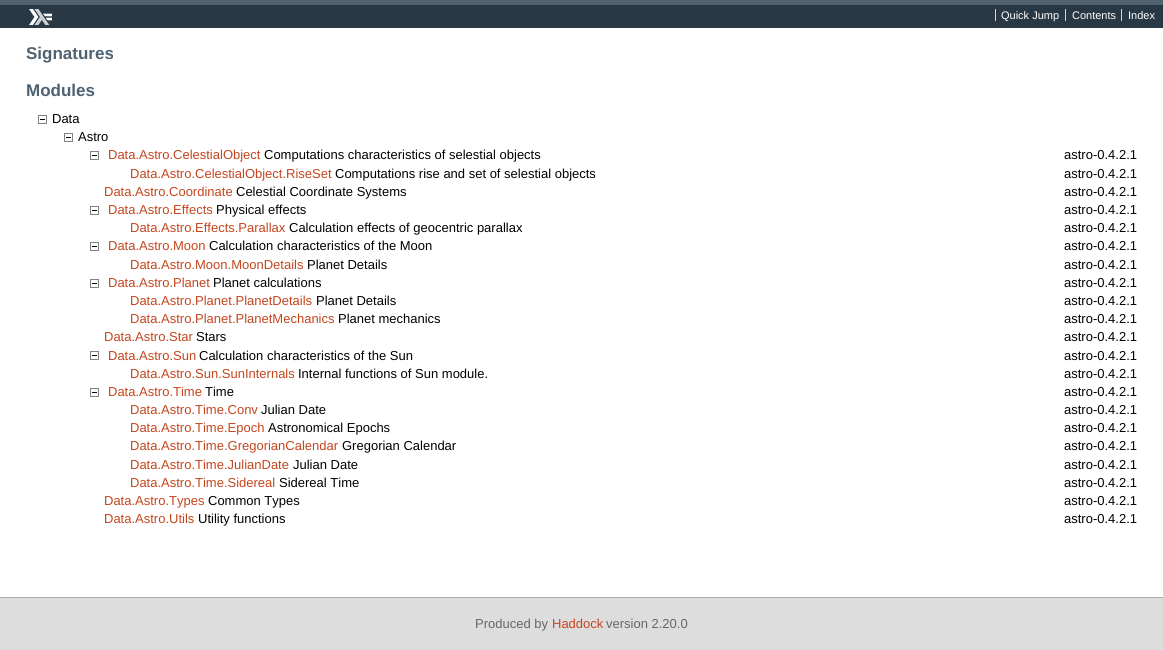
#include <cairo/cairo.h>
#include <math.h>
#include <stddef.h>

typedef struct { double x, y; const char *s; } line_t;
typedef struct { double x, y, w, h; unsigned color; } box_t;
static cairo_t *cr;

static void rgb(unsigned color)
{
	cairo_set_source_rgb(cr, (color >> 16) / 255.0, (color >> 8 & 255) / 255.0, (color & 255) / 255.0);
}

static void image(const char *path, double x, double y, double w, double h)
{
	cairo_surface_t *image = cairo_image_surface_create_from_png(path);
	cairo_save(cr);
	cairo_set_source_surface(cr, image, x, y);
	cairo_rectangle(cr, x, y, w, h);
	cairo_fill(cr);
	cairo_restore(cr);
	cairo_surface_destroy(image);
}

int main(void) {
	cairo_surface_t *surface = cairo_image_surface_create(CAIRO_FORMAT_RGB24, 1163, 650);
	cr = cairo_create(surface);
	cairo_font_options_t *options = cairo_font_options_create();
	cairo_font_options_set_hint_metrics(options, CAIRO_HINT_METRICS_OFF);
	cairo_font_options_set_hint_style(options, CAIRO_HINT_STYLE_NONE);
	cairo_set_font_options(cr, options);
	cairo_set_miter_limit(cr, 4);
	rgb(0xffffff);
	cairo_paint(cr);
	rgb(0x293845);
	cairo_rectangle(cr, 0, 5, 1163, 23);
	cairo_fill(cr);
	rgb(0x4e6272);
	cairo_rectangle(cr, 0, 0, 1163, 5);
	cairo_fill(cr);
	image("img/1.png", 29, 9, 23, 16);
	{
		static const box_t items[] = {
			{995, 9, 1, 12, 0xd5d5d5},
			{1065, 9, 1, 12, 0xd5d5d5},
			{1121, 9, 1, 12, 0xd5d5d5},
		};
		for (size_t i = 0; i < sizeof items / sizeof *items; i++) {
			rgb(items[i].color);
			cairo_rectangle(cr, items[i].x, items[i].y, items[i].w, items[i].h);
			cairo_fill(cr);
		}
	}
	image("img/2.png", 38, 115, 9, 9);
	image("img/2.png", 64, 133, 9, 9);
	image("img/2.png", 90, 151, 9, 9);
	image("img/2.png", 90, 206, 9, 9);
	image("img/2.png", 90, 242, 9, 9);
	image("img/2.png", 90, 279, 9, 9);
	image("img/2.png", 90, 351, 9, 9);
	image("img/2.png", 90, 388, 9, 9);
	rgb(0xdddddd);
	cairo_rectangle(cr, 0, 598, 1163, 52);
	cairo_fill(cr);
	rgb(0xaaaaaa);
	cairo_rectangle(cr, 0, 597, 1163, 1);
	cairo_fill(cr);
	cairo_select_font_face(cr, "Liberation Sans", CAIRO_FONT_SLANT_NORMAL, CAIRO_FONT_WEIGHT_NORMAL);
	cairo_set_font_size(cr, 11);
	rgb(0xffffff);
	{
		static const line_t items[] = {
			{1001, 19, "Quick Jump"},
			{1072, 19, "Contents"},
			{1128, 19, "Index"},
		};
		for (size_t i = 0; i < sizeof items / sizeof *items; i++) {
			cairo_move_to(cr, items[i].x, items[i].y);
			cairo_show_text(cr, items[i].s);
		}
	}
	cairo_select_font_face(cr, "Liberation Sans", CAIRO_FONT_SLANT_NORMAL, CAIRO_FONT_WEIGHT_BOLD);
	cairo_set_font_size(cr, 17);
	rgb(0x4e6272);
	cairo_move_to(cr, 26, 59);
	cairo_show_text(cr, "Signatures");
	cairo_move_to(cr, 26, 96);
	cairo_show_text(cr, "Modules");
	cairo_select_font_face(cr, "Liberation Sans", CAIRO_FONT_SLANT_NORMAL, CAIRO_FONT_WEIGHT_NORMAL);
	cairo_set_font_size(cr, 13);
	rgb(0x000000);
	cairo_move_to(cr, 52, 123);
	cairo_show_text(cr, "Data");
	cairo_move_to(cr, 78, 141);
	cairo_show_text(cr, "Astro");
	rgb(0xc4451d);
	cairo_move_to(cr, 108, 159);
	cairo_show_text(cr, "Data.Astro.CelestialObject");
	rgb(0x000000);
	cairo_move_to(cr, 264, 159);
	cairo_show_text(cr, "Computations characteristics of selestial objects");
	cairo_move_to(cr, 1064, 159);
	cairo_show_text(cr, "astro-0.4.2.1");
	rgb(0xc4451d);
	cairo_move_to(cr, 130, 178);
	cairo_show_text(cr, "Data.Astro.CelestialObject.RiseSet");
	rgb(0x000000);
	cairo_move_to(cr, 335, 178);
	cairo_show_text(cr, "Computations rise and set of selestial objects");
	cairo_move_to(cr, 1064, 178);
	cairo_show_text(cr, "astro-0.4.2.1");
	rgb(0xc4451d);
	cairo_move_to(cr, 104, 196);
	cairo_show_text(cr, "Data.Astro.Coordinate");
	rgb(0x000000);
	cairo_move_to(cr, 236, 196);
	cairo_show_text(cr, "Celestial Coordinate Systems");
	cairo_move_to(cr, 1064, 196);
	cairo_show_text(cr, "astro-0.4.2.1");
	rgb(0xc4451d);
	cairo_move_to(cr, 108, 214);
	cairo_show_text(cr, "Data.Astro.Effects");
	rgb(0x000000);
	cairo_move_to(cr, 216, 214);
	cairo_show_text(cr, "Physical effects");
	cairo_move_to(cr, 1064, 214);
	cairo_show_text(cr, "astro-0.4.2.1");
	rgb(0xc4451d);
	cairo_move_to(cr, 130, 232);
	cairo_show_text(cr, "Data.Astro.Effects.Parallax");
	rgb(0x000000);
	cairo_move_to(cr, 289, 232);
	cairo_show_text(cr, "Calculation effects of geocentric parallax");
	cairo_move_to(cr, 1064, 232);
	cairo_show_text(cr, "astro-0.4.2.1");
	rgb(0xc4451d);
	cairo_move_to(cr, 108, 250);
	cairo_show_text(cr, "Data.Astro.Moon");
	rgb(0x000000);
	cairo_move_to(cr, 209, 250);
	cairo_show_text(cr, "Calculation characteristics of the Moon");
	cairo_move_to(cr, 1064, 250);
	cairo_show_text(cr, "astro-0.4.2.1");
	rgb(0xc4451d);
	cairo_move_to(cr, 130, 269);
	cairo_show_text(cr, "Data.Astro.Moon.MoonDetails");
	rgb(0x000000);
	cairo_move_to(cr, 307, 269);
	cairo_show_text(cr, "Planet Details");
	cairo_move_to(cr, 1064, 269);
	cairo_show_text(cr, "astro-0.4.2.1");
	rgb(0xc4451d);
	cairo_move_to(cr, 108, 287);
	cairo_show_text(cr, "Data.Astro.Planet");
	rgb(0x000000);
	cairo_move_to(cr, 213, 287);
	cairo_show_text(cr, "Planet calculations");
	cairo_move_to(cr, 1064, 287);
	cairo_show_text(cr, "astro-0.4.2.1");
	rgb(0xc4451d);
	cairo_move_to(cr, 130, 305);
	cairo_show_text(cr, "Data.Astro.Planet.PlanetDetails");
	rgb(0x000000);
	cairo_move_to(cr, 316, 305);
	cairo_show_text(cr, "Planet Details");
	cairo_move_to(cr, 1064, 305);
	cairo_show_text(cr, "astro-0.4.2.1");
	rgb(0xc4451d);
	cairo_move_to(cr, 130, 323);
	cairo_show_text(cr, "Data.Astro.Planet.PlanetMechanics");
	rgb(0x000000);
	cairo_move_to(cr, 338, 323);
	cairo_show_text(cr, "Planet mechanics");
	cairo_move_to(cr, 1064, 323);
	cairo_show_text(cr, "astro-0.4.2.1");
	rgb(0xc4451d);
	cairo_move_to(cr, 104, 341);
	cairo_show_text(cr, "Data.Astro.Star");
	rgb(0x000000);
	cairo_move_to(cr, 196, 341);
	cairo_show_text(cr, "Stars");
	cairo_move_to(cr, 1064, 341);
	cairo_show_text(cr, "astro-0.4.2.1");
	rgb(0xc4451d);
	cairo_move_to(cr, 108, 360);
	cairo_show_text(cr, "Data.Astro.Sun");
	rgb(0x000000);
	cairo_move_to(cr, 199, 360);
	cairo_show_text(cr, "Calculation characteristics of the Sun");
	cairo_move_to(cr, 1064, 360);
	cairo_show_text(cr, "astro-0.4.2.1");
	rgb(0xc4451d);
	cairo_move_to(cr, 130, 378);
	cairo_show_text(cr, "Data.Astro.Sun.SunInternals");
	rgb(0x000000);
	cairo_move_to(cr, 298, 378);
	cairo_show_text(cr, "Internal functions of Sun module.");
	cairo_move_to(cr, 1064, 378);
	cairo_show_text(cr, "astro-0.4.2.1");
	rgb(0xc4451d);
	cairo_move_to(cr, 108, 396);
	cairo_show_text(cr, "Data.Astro.Time");
	rgb(0x000000);
	cairo_move_to(cr, 205, 396);
	cairo_show_text(cr, "Time");
	cairo_move_to(cr, 1064, 396);
	cairo_show_text(cr, "astro-0.4.2.1");
	rgb(0xc4451d);
	cairo_move_to(cr, 130, 414);
	cairo_show_text(cr, "Data.Astro.Time.Conv");
	rgb(0x000000);
	cairo_move_to(cr, 261, 414);
	cairo_show_text(cr, "Julian Date");
	cairo_move_to(cr, 1064, 414);
	cairo_show_text(cr, "astro-0.4.2.1");
	rgb(0xc4451d);
	cairo_move_to(cr, 130, 432);
	cairo_show_text(cr, "Data.Astro.Time.Epoch");
	rgb(0x000000);
	cairo_move_to(cr, 268, 432);
	cairo_show_text(cr, "Astronomical Epochs");
	cairo_move_to(cr, 1064, 432);
	cairo_show_text(cr, "astro-0.4.2.1");
	rgb(0xc4451d);
	cairo_move_to(cr, 130, 450);
	cairo_show_text(cr, "Data.Astro.Time.GregorianCalendar");
	rgb(0x000000);
	cairo_move_to(cr, 342, 450);
	cairo_show_text(cr, "Gregorian Calendar");
	cairo_move_to(cr, 1064, 450);
	cairo_show_text(cr, "astro-0.4.2.1");
	rgb(0xc4451d);
	cairo_move_to(cr, 130, 469);
	cairo_show_text(cr, "Data.Astro.Time.JulianDate");
	rgb(0x000000);
	cairo_move_to(cr, 293, 469);
	cairo_show_text(cr, "Julian Date");
	cairo_move_to(cr, 1064, 469);
	cairo_show_text(cr, "astro-0.4.2.1");
	rgb(0xc4451d);
	cairo_move_to(cr, 130, 487);
	cairo_show_text(cr, "Data.Astro.Time.Sidereal");
	rgb(0x000000);
	cairo_move_to(cr, 279, 487);
	cairo_show_text(cr, "Sidereal Time");
	cairo_move_to(cr, 1064, 487);
	cairo_show_text(cr, "astro-0.4.2.1");
	rgb(0xc4451d);
	cairo_move_to(cr, 104, 505);
	cairo_show_text(cr, "Data.Astro.Types");
	rgb(0x000000);
	cairo_move_to(cr, 208, 505);
	cairo_show_text(cr, "Common Types");
	cairo_move_to(cr, 1064, 505);
	cairo_show_text(cr, "astro-0.4.2.1");
	rgb(0xc4451d);
	cairo_move_to(cr, 104, 523);
	cairo_show_text(cr, "Data.Astro.Utils");
	rgb(0x000000);
	cairo_move_to(cr, 198, 523);
	cairo_show_text(cr, "Utility functions");
	cairo_move_to(cr, 1064, 523);
	cairo_show_text(cr, "astro-0.4.2.1");
	rgb(0x666666);
	cairo_move_to(cr, 475, 628);
	cairo_show_text(cr, "Produced by");
	rgb(0xc4451d);
	cairo_move_to(cr, 552, 628);
	cairo_show_text(cr, "Haddock");
	rgb(0x666666);
	cairo_move_to(cr, 606, 628);
	cairo_show_text(cr, "version 2.20.0");
	cairo_surface_write_to_png(surface, "page.png");
	cairo_font_options_destroy(options);
	cairo_destroy(cr);
	cairo_surface_destroy(surface);
	return 0;
}
